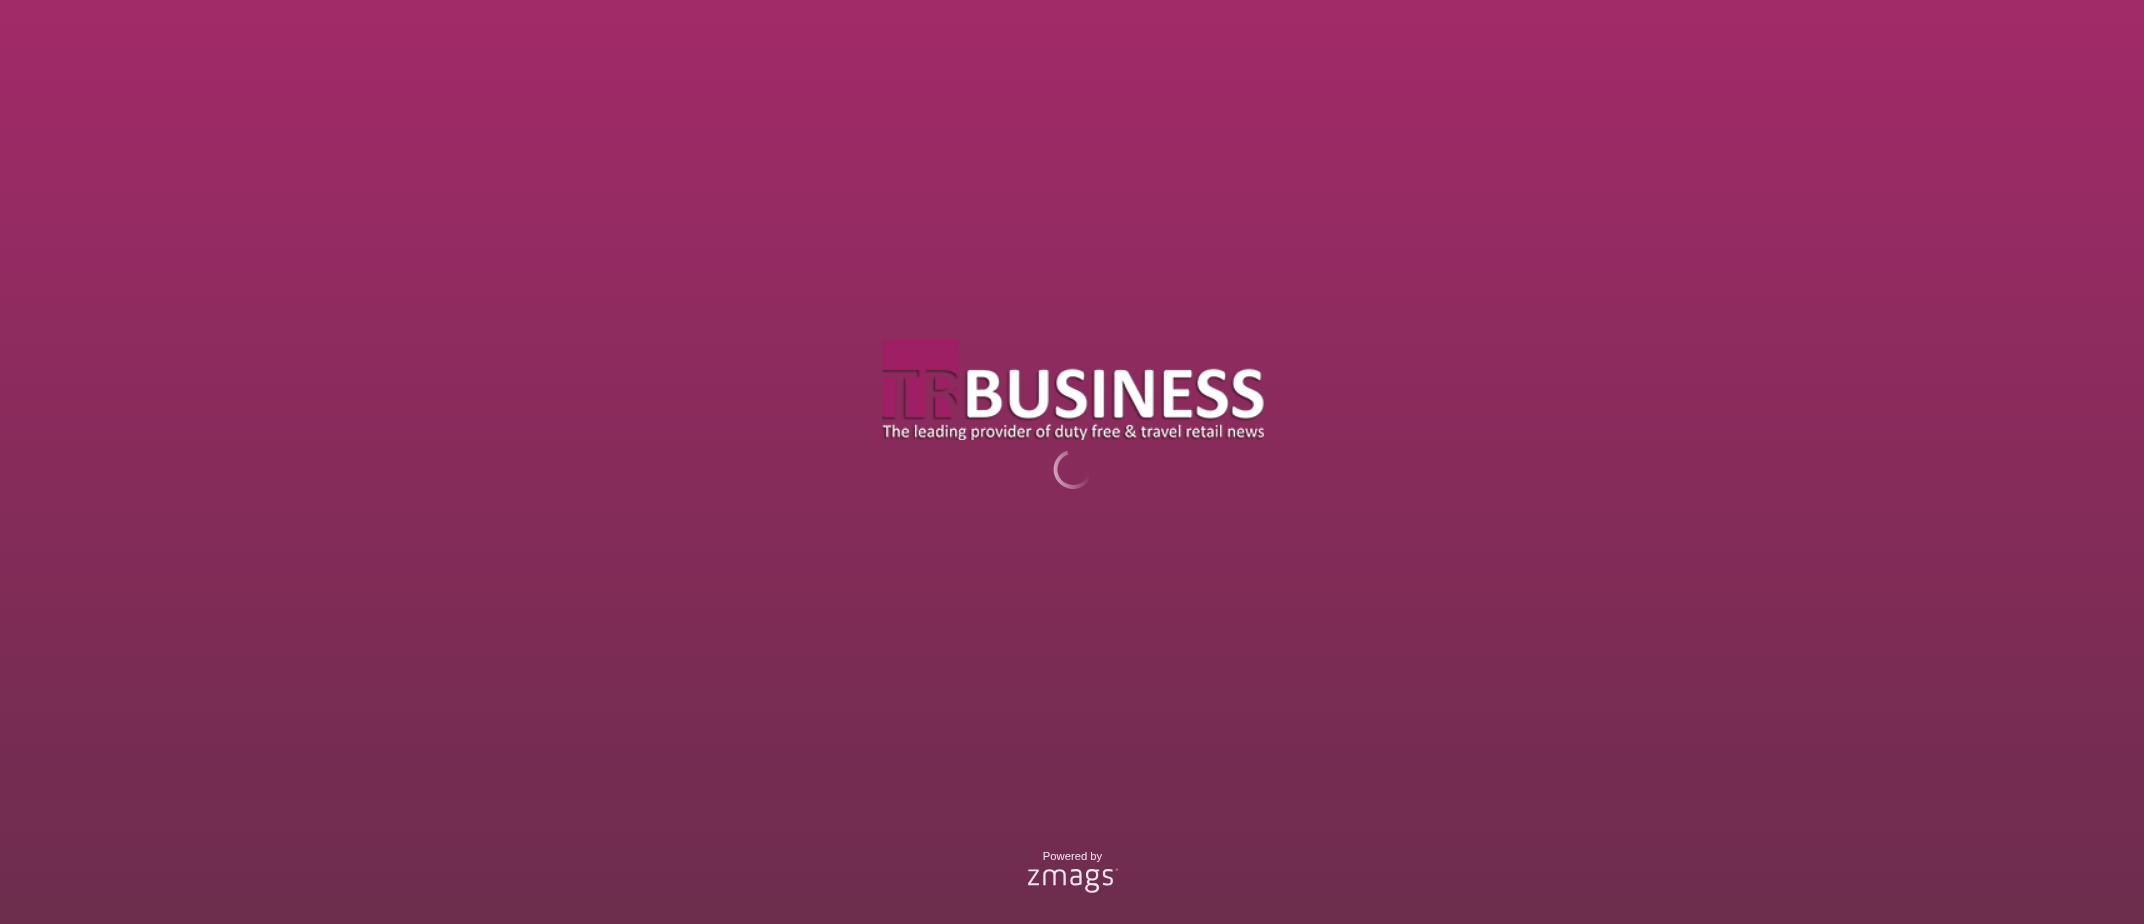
#include <cairo/cairo.h>
#include <math.h>
#include <stddef.h>

static cairo_t *cr;

static void rgb(unsigned color)
{
	cairo_set_source_rgb(cr, (color >> 16) / 255.0, (color >> 8 & 255) / 255.0, (color & 255) / 255.0);
}

static void image(const char *path, double x, double y, double w, double h)
{
	cairo_surface_t *image = cairo_image_surface_create_from_png(path);
	cairo_save(cr);
	cairo_set_source_surface(cr, image, x, y);
	cairo_rectangle(cr, x, y, w, h);
	cairo_fill(cr);
	cairo_restore(cr);
	cairo_surface_destroy(image);
}

int main(void) {
	cairo_surface_t *surface = cairo_image_surface_create(CAIRO_FORMAT_RGB24, 2144, 924);
	cr = cairo_create(surface);
	cairo_font_options_t *options = cairo_font_options_create();
	cairo_font_options_set_hint_metrics(options, CAIRO_HINT_METRICS_OFF);
	cairo_font_options_set_hint_style(options, CAIRO_HINT_STYLE_NONE);
	cairo_set_font_options(cr, options);
	cairo_set_miter_limit(cr, 4);
	rgb(0xffffff);
	cairo_paint(cr);
	image("img/1.png", 0, 0, 2144, 924);
	cairo_surface_write_to_png(surface, "page.png");
	cairo_font_options_destroy(options);
	cairo_destroy(cr);
	cairo_surface_destroy(surface);
	return 0;
}
